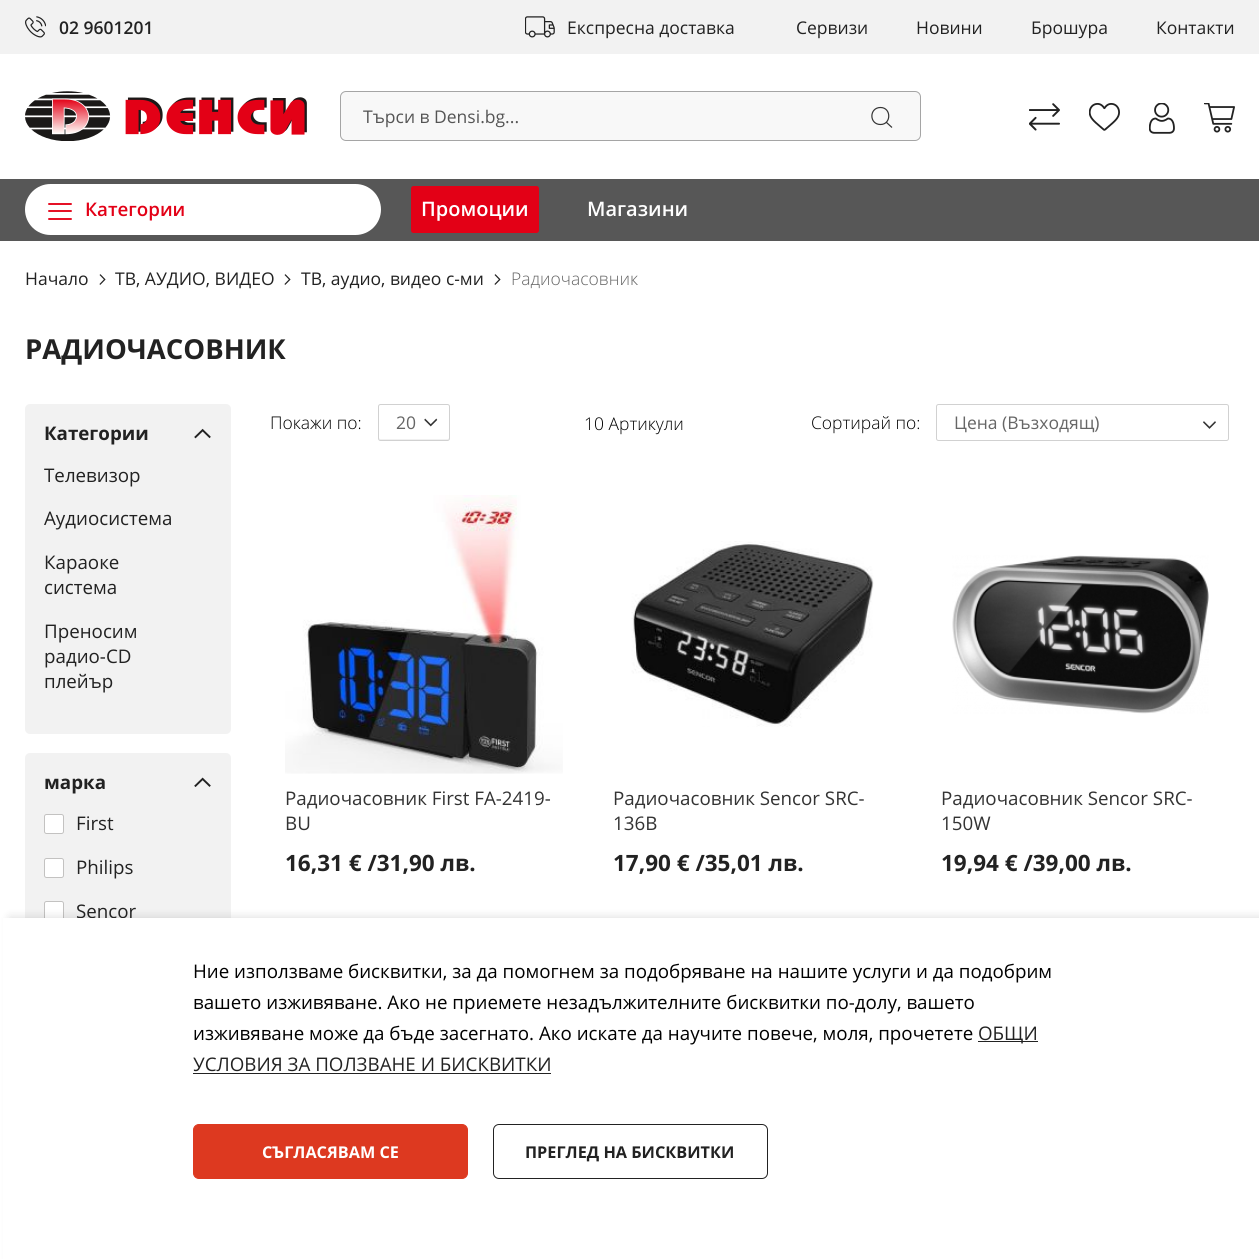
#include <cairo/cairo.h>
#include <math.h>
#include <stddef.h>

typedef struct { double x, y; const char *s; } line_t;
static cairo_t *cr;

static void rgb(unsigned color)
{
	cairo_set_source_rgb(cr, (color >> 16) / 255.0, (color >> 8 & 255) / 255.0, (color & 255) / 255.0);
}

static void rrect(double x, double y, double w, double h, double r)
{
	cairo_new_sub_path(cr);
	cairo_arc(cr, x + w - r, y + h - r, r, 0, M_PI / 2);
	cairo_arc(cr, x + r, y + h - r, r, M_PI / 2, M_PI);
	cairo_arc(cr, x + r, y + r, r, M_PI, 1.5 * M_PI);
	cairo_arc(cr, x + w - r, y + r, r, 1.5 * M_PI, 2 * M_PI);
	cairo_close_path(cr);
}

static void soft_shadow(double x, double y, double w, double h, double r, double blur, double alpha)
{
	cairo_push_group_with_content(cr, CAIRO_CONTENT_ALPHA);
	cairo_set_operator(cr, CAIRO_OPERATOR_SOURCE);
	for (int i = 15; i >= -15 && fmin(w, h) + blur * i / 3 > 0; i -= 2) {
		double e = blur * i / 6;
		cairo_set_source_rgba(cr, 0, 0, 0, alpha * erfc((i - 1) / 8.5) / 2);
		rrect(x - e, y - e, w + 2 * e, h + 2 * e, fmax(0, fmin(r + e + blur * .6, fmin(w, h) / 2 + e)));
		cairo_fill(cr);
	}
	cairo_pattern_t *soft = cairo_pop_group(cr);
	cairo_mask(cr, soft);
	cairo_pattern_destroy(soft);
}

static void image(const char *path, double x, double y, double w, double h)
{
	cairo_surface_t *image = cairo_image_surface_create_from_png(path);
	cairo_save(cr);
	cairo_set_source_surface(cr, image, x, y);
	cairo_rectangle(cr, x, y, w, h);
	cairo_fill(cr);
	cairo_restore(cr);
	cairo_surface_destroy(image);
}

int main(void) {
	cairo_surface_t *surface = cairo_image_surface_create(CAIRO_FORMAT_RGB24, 1259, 1259);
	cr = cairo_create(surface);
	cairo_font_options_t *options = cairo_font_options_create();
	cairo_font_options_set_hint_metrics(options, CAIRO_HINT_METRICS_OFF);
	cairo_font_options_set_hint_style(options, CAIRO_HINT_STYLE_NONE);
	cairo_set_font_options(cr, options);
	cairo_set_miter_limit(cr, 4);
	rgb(0xffffff);
	cairo_paint(cr);
	rgb(0xf2f2f2);
	cairo_rectangle(cr, 0, 0, 1259, 54);
	cairo_fill(cr);
	image("img/1.png", 25, 16, 21, 22);
	image("img/2.png", 525, 16, 30, 22);
	image("img/3.png", 25, 91, 282, 50);
	rgb(0xf8f8f8);
	rrect(340.5, 91.5, 580, 49, 5.5);
	cairo_fill_preserve(cr);
	rgb(0xa5a5a5);
	cairo_set_line_width(cr, 1);
	cairo_stroke(cr);
	cairo_new_path(cr);
	cairo_move_to(cr, 892, 127.5);
	cairo_line_to(cr, 886, 122);
	cairo_move_to(cr, 880.5, 124.5);
	cairo_curve_to(cr, 869, 124.5, 869, 107.5, 880.5, 107.5);
	cairo_curve_to(cr, 891.5, 107.5, 891.5, 124.5, 880.5, 124.5);
	cairo_close_path(cr);
	rgb(0x333333);
	cairo_set_line_width(cr, 1.2);
	cairo_stroke(cr);
	image("img/4.png", 1029, 103, 31, 28);
	image("img/5.png", 1089, 103, 31, 28);
	image("img/6.png", 1149, 103, 26, 31);
	image("img/7.png", 1204, 103, 31, 30);
	rgb(0x575757);
	cairo_rectangle(cr, 0, 179, 1259, 62);
	cairo_fill(cr);
	rgb(0xffffff);
	rrect(25, 184, 356, 51, 25.5);
	cairo_fill(cr);
	cairo_new_path(cr);
	cairo_move_to(cr, 49, 204);
	cairo_line_to(cr, 71, 204);
	cairo_move_to(cr, 49, 211);
	cairo_line_to(cr, 71, 211);
	cairo_move_to(cr, 49, 219);
	cairo_line_to(cr, 71, 219);
	rgb(0xe30016);
	cairo_set_line_width(cr, 1.9);
	cairo_set_line_cap(cr, CAIRO_LINE_CAP_ROUND);
	cairo_stroke(cr);
	rrect(411, 186, 128, 47, 2.5);
	cairo_fill(cr);
	image("img/8.png", 99, 274, 7, 11);
	image("img/8.png", 284, 274, 7, 11);
	image("img/8.png", 494, 274, 7, 11);
	rgb(0xf2f2f2);
	rrect(25, 404, 206, 330, 5);
	cairo_fill(cr);
	image("img/9.png", 194, 428, 17, 11);
	rrect(25, 753, 206, 201, 5);
	cairo_fill(cr);
	image("img/10.png", 194, 777, 17, 10);
	rgb(0xffffff);
	rrect(44.5, 814.5, 19, 19, 2);
	cairo_fill_preserve(cr);
	rgb(0xc3c2c1);
	cairo_set_line_width(cr, 1);
	cairo_set_line_cap(cr, CAIRO_LINE_CAP_BUTT);
	cairo_stroke(cr);
	rgb(0xffffff);
	rrect(44.5, 858.5, 19, 19, 2);
	cairo_fill_preserve(cr);
	rgb(0xc3c2c1);
	cairo_stroke(cr);
	rgb(0xffffff);
	rrect(44.5, 901.5, 19, 19, 2);
	cairo_fill_preserve(cr);
	rgb(0xc3c2c1);
	cairo_stroke(cr);
	image("img/11.png", 424, 418, 14, 9);
	rgb(0xf0f0f0);
	cairo_new_path(cr);
	cairo_move_to(cr, 379, 438);
	cairo_curve_to(cr, 379, 443, 388, 440, 391, 440);
	cairo_line_to(cr, 448, 440);
	cairo_curve_to(cr, 449, 440, 449, 439, 449, 438);
	cairo_line_to(cr, 448, 439);
	cairo_line_to(cr, 380, 439);
	cairo_close_path(cr);
	cairo_fill(cr);
	rrect(378.5, 404.5, 71, 36, 2);
	rgb(0xd1d1d1);
	cairo_stroke(cr);
	image("img/12.png", 1203, 421, 13, 8);
	rrect(936.5, 404.5, 292, 36, 2);
	cairo_stroke(cr);
	image("img/13.png", 285, 495, 278, 279);
	image("img/14.png", 631, 541, 243, 186);
	image("img/15.png", 952, 555, 257, 159);
	rgb(0x000000);
	soft_shadow(10, 918, 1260, 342, 0, 5, 0.15);
	cairo_select_font_face(cr, "Open Sans SemiBold", CAIRO_FONT_SLANT_NORMAL, CAIRO_FONT_WEIGHT_NORMAL);
	cairo_set_font_size(cr, 17.5);
	rgb(0x222222);
	cairo_move_to(cr, 59, 34);
	cairo_show_text(cr, "02 9601201");
	cairo_select_font_face(cr, "Open Sans", CAIRO_FONT_SLANT_NORMAL, CAIRO_FONT_WEIGHT_NORMAL);
	{
		static const line_t items[] = {
			{567, 34, "Експресна доставка"},
			{796, 34, "Сервизи"},
			{916, 34, "Новини"},
			{1031, 34, "Брошура"},
			{1156, 34, "Контакти"},
		};
		for (size_t i = 0; i < sizeof items / sizeof *items; i++) {
			cairo_move_to(cr, items[i].x, items[i].y);
			cairo_show_text(cr, items[i].s);
		}
	}
	rgb(0x555555);
	cairo_move_to(cr, 363, 123);
	cairo_show_text(cr, "Търси в Densi.bg...");
	cairo_select_font_face(cr, "Open Sans SemiBold", CAIRO_FONT_SLANT_NORMAL, CAIRO_FONT_WEIGHT_NORMAL);
	cairo_set_font_size(cr, 18.75);
	rgb(0xe30016);
	cairo_move_to(cr, 85, 216);
	cairo_show_text(cr, "Категории");
	cairo_set_font_size(cr, 20);
	rgb(0xffffff);
	cairo_move_to(cr, 421, 216);
	cairo_show_text(cr, "Промоции");
	cairo_move_to(cr, 587, 216);
	cairo_show_text(cr, "Магазини");
	cairo_select_font_face(cr, "Open Sans", CAIRO_FONT_SLANT_NORMAL, CAIRO_FONT_WEIGHT_NORMAL);
	cairo_set_font_size(cr, 17.5);
	rgb(0x222222);
	{
		static const line_t items[] = {
			{25, 285, "Начало"},
			{115, 285, "ТВ, АУДИО, ВИДЕО"},
			{301, 285, "ТВ, аудио, видео с-ми"},
		};
		for (size_t i = 0; i < sizeof items / sizeof *items; i++) {
			cairo_move_to(cr, items[i].x, items[i].y);
			cairo_show_text(cr, items[i].s);
		}
	}
	cairo_select_font_face(cr, "Open Sans Light", CAIRO_FONT_SLANT_NORMAL, CAIRO_FONT_WEIGHT_NORMAL);
	rgb(0x666666);
	cairo_move_to(cr, 511, 285);
	cairo_show_text(cr, "Радиочасовник");
	cairo_select_font_face(cr, "Open Sans", CAIRO_FONT_SLANT_NORMAL, CAIRO_FONT_WEIGHT_BOLD);
	cairo_set_font_size(cr, 27.5);
	rgb(0x222222);
	cairo_move_to(cr, 25, 359);
	cairo_show_text(cr, "РАДИОЧАСОВНИК");
	cairo_set_font_size(cr, 18.75);
	cairo_move_to(cr, 44, 440);
	cairo_show_text(cr, "Категории");
	cairo_select_font_face(cr, "Open Sans", CAIRO_FONT_SLANT_NORMAL, CAIRO_FONT_WEIGHT_NORMAL);
	{
		static const line_t items[] = {
			{44, 482, "Телевизор"},
			{44, 525, "Аудиосистема"},
			{44, 569, "Караоке"},
			{44, 594, "система"},
			{44, 638, "Преносим"},
			{44, 663, "радио-CD"},
			{44, 688, "плейър"},
		};
		for (size_t i = 0; i < sizeof items / sizeof *items; i++) {
			cairo_move_to(cr, items[i].x, items[i].y);
			cairo_show_text(cr, items[i].s);
		}
	}
	cairo_select_font_face(cr, "Open Sans", CAIRO_FONT_SLANT_NORMAL, CAIRO_FONT_WEIGHT_BOLD);
	cairo_move_to(cr, 44, 789);
	cairo_show_text(cr, "марка");
	cairo_select_font_face(cr, "Open Sans", CAIRO_FONT_SLANT_NORMAL, CAIRO_FONT_WEIGHT_NORMAL);
	{
		static const line_t items[] = {
			{76, 830, "First"},
			{76, 874, "Philips"},
			{76, 918, "Sencor"},
		};
		for (size_t i = 0; i < sizeof items / sizeof *items; i++) {
			cairo_move_to(cr, items[i].x, items[i].y);
			cairo_show_text(cr, items[i].s);
		}
	}
	cairo_select_font_face(cr, "Open Sans Light", CAIRO_FONT_SLANT_NORMAL, CAIRO_FONT_WEIGHT_NORMAL);
	cairo_set_font_size(cr, 17.5);
	rgb(0x000000);
	cairo_move_to(cr, 270, 429);
	cairo_show_text(cr, "Покажи по:");
	cairo_select_font_face(cr, "Open Sans", CAIRO_FONT_SLANT_NORMAL, CAIRO_FONT_WEIGHT_NORMAL);
	rgb(0x666666);
	cairo_move_to(cr, 396, 429);
	cairo_show_text(cr, "20");
	cairo_select_font_face(cr, "Open Sans Light", CAIRO_FONT_SLANT_NORMAL, CAIRO_FONT_WEIGHT_NORMAL);
	rgb(0x000000);
	cairo_move_to(cr, 584, 430);
	cairo_show_text(cr, "10 Артикули");
	cairo_move_to(cr, 811, 429);
	cairo_show_text(cr, "Сортирай по:");
	cairo_select_font_face(cr, "Open Sans", CAIRO_FONT_SLANT_NORMAL, CAIRO_FONT_WEIGHT_NORMAL);
	rgb(0x666666);
	cairo_move_to(cr, 954, 429);
	cairo_show_text(cr, "Цена (Възходящ)");
	cairo_set_font_size(cr, 18.75);
	rgb(0x333333);
	cairo_move_to(cr, 285, 805);
	cairo_show_text(cr, "Радиочасовник First FA-2419-");
	cairo_move_to(cr, 285, 830);
	cairo_show_text(cr, "BU");
	cairo_select_font_face(cr, "Open Sans", CAIRO_FONT_SLANT_NORMAL, CAIRO_FONT_WEIGHT_BOLD);
	cairo_set_font_size(cr, 22.5);
	rgb(0x222222);
	cairo_move_to(cr, 285, 871);
	cairo_show_text(cr, "16,31 € /31,90 лв.");
	cairo_select_font_face(cr, "Open Sans", CAIRO_FONT_SLANT_NORMAL, CAIRO_FONT_WEIGHT_NORMAL);
	cairo_set_font_size(cr, 18.75);
	rgb(0x333333);
	cairo_move_to(cr, 613, 805);
	cairo_show_text(cr, "Радиочасовник Sencor SRC-");
	cairo_move_to(cr, 613, 830);
	cairo_show_text(cr, "136B");
	cairo_select_font_face(cr, "Open Sans", CAIRO_FONT_SLANT_NORMAL, CAIRO_FONT_WEIGHT_BOLD);
	cairo_set_font_size(cr, 22.5);
	rgb(0x222222);
	cairo_move_to(cr, 613, 871);
	cairo_show_text(cr, "17,90 € /35,01 лв.");
	cairo_select_font_face(cr, "Open Sans", CAIRO_FONT_SLANT_NORMAL, CAIRO_FONT_WEIGHT_NORMAL);
	cairo_set_font_size(cr, 18.75);
	rgb(0x333333);
	cairo_move_to(cr, 941, 805);
	cairo_show_text(cr, "Радиочасовник Sencor SRC-");
	cairo_move_to(cr, 941, 830);
	cairo_show_text(cr, "150W");
	cairo_select_font_face(cr, "Open Sans", CAIRO_FONT_SLANT_NORMAL, CAIRO_FONT_WEIGHT_BOLD);
	cairo_set_font_size(cr, 22.5);
	rgb(0x222222);
	cairo_move_to(cr, 941, 871);
	cairo_show_text(cr, "19,94 € /39,00 лв.");
	rgb(0xffffff);
	cairo_rectangle(cr, 3, 918, 1256, 341);
	cairo_fill(cr);
	cairo_select_font_face(cr, "Open Sans", CAIRO_FONT_SLANT_NORMAL, CAIRO_FONT_WEIGHT_NORMAL);
	cairo_set_font_size(cr, 18.75);
	rgb(0x000000);
	{
		static const line_t items[] = {
			{193, 978, "Ние използваме бисквитки, за да помогнем за подобряване на нашите услуги и да подобрим"},
			{193, 1009, "вашето изживяване. Ако не приемете незадължителните бисквитки по-долу, вашето"},
			{193, 1040, "изживяване може да бъде засегнато. Ако искате да научите повече, моля, прочетете"},
		};
		for (size_t i = 0; i < sizeof items / sizeof *items; i++) {
			cairo_move_to(cr, items[i].x, items[i].y);
			cairo_show_text(cr, items[i].s);
		}
	}
	rgb(0x222222);
	cairo_rectangle(cr, 978, 1041, 60, 1);
	cairo_fill(cr);
	cairo_move_to(cr, 978, 1040);
	cairo_show_text(cr, "ОБЩИ");
	cairo_move_to(cr, 193, 1071);
	cairo_show_text(cr, "УСЛОВИЯ ЗА ПОЛЗВАНЕ И БИСКВИТКИ");
	cairo_rectangle(cr, 193, 1073, 358, 1);
	cairo_fill(cr);
	rgb(0xdd3920);
	rrect(193.5, 1124.5, 274, 54, 5.5);
	cairo_fill_preserve(cr);
	cairo_stroke(cr);
	cairo_select_font_face(cr, "Open Sans", CAIRO_FONT_SLANT_NORMAL, CAIRO_FONT_WEIGHT_BOLD);
	cairo_set_font_size(cr, 16.25);
	rgb(0xffffff);
	cairo_move_to(cr, 262, 1158);
	cairo_show_text(cr, "СЪГЛАСЯВАМ СЕ");
	rrect(493.5, 1124.5, 274, 54, 5.5);
	rgb(0x222222);
	cairo_stroke(cr);
	cairo_move_to(cr, 525, 1158);
	cairo_show_text(cr, "ПРЕГЛЕД НА БИСКВИТКИ");
	cairo_surface_write_to_png(surface, "page.png");
	cairo_font_options_destroy(options);
	cairo_destroy(cr);
	cairo_surface_destroy(surface);
	return 0;
}
